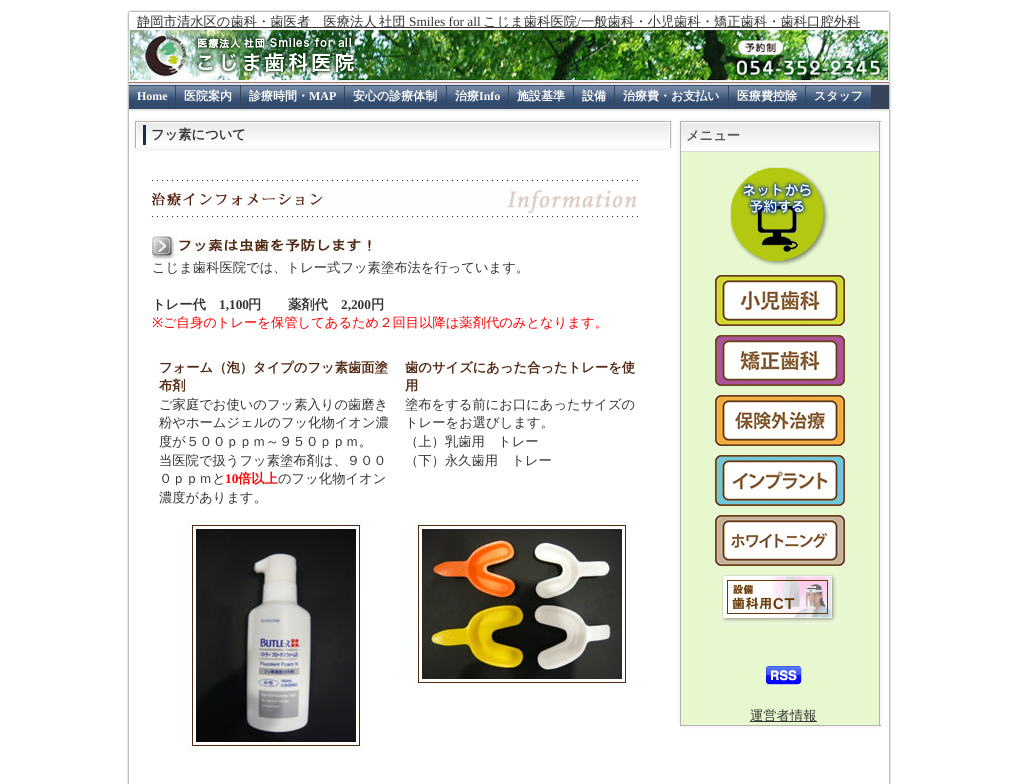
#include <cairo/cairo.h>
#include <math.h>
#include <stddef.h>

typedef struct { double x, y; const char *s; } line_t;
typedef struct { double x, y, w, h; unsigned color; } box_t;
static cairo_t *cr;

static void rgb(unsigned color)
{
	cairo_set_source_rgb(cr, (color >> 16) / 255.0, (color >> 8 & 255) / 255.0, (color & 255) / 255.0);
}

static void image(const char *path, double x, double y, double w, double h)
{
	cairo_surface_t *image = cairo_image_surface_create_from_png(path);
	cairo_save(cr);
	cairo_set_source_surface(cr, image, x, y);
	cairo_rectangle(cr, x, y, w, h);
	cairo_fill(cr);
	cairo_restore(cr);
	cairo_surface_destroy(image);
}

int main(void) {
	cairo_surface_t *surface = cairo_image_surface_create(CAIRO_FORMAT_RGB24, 1017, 784);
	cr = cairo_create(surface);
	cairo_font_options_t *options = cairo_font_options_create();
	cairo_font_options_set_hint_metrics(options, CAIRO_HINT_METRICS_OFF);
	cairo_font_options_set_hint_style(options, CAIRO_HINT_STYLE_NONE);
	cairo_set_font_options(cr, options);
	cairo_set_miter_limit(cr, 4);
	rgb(0xffffff);
	cairo_paint(cr);
	image("img/1.png", 127, 10, 764, 3);
	image("img/2.png", 127, 13, 764, 771);
	image("img/3.png", 127, 30, 764, 53);
	{
		static const box_t items[] = {
			{137, 27, 723, 1, 0x333333},
			{129, 85, 760, 24, 0x36455a},
			{129, 83, 760, 2, 0xe5e5e5},
			{129, 109, 760, 2, 0xe5e5e5},
			{129, 103, 46, 5, 0x324b6d},
		};
		for (size_t i = 0; i < sizeof items / sizeof *items; i++) {
			rgb(items[i].color);
			cairo_rectangle(cr, items[i].x, items[i].y, items[i].w, items[i].h);
			cairo_fill(cr);
		}
	}
	image("img/4.png", 129, 85, 46, 18);
	cairo_rectangle(cr, 176, 103, 64, 5);
	cairo_fill(cr);
	image("img/5.png", 176, 85, 64, 18);
	cairo_rectangle(cr, 241, 103, 103, 5);
	cairo_fill(cr);
	image("img/6.png", 241, 85, 103, 18);
	cairo_rectangle(cr, 345, 103, 101, 5);
	cairo_fill(cr);
	image("img/7.png", 345, 85, 101, 18);
	cairo_rectangle(cr, 447, 103, 61, 5);
	cairo_fill(cr);
	image("img/8.png", 447, 85, 61, 18);
	cairo_rectangle(cr, 509, 103, 64, 5);
	cairo_fill(cr);
	image("img/5.png", 509, 85, 64, 18);
	cairo_rectangle(cr, 574, 103, 40, 5);
	cairo_fill(cr);
	image("img/9.png", 574, 85, 40, 18);
	cairo_rectangle(cr, 615, 103, 113, 5);
	cairo_fill(cr);
	image("img/10.png", 615, 85, 113, 18);
	cairo_rectangle(cr, 729, 103, 76, 5);
	cairo_fill(cr);
	image("img/11.png", 729, 85, 76, 18);
	cairo_rectangle(cr, 806, 103, 65, 5);
	cairo_fill(cr);
	image("img/12.png", 806, 85, 65, 18);
	image("img/13.png", 134, 146, 538, 2);
	image("img/14.png", 133, 119, 539, 27);
	rgb(0x192d49);
	cairo_rectangle(cr, 143, 125, 3, 20);
	cairo_fill(cr);
	rgb(0xf6f6f6);
	cairo_rectangle(cr, 134, 148, 538, 3);
	cairo_fill(cr);
	image("img/15.png", 152, 180, 486, 37);
	image("img/16.png", 152, 236, 223, 23);
	image("img/17.png", 186, 519, 176, 232);
	image("img/18.png", 412, 519, 216, 168);
	image("img/19.png", 678, 119, 204, 606);
	image("img/20.png", 678, 119, 203, 3);
	image("img/21.png", 681, 122, 198, 29);
	rgb(0xd7d7d7);
	cairo_rectangle(cr, 681, 151, 198, 1);
	cairo_fill(cr);
	image("img/22.png", 730, 167, 100, 99);
	image("img/23.png", 715, 275, 130, 51);
	image("img/24.png", 715, 335, 130, 51);
	image("img/25.png", 715, 395, 130, 51);
	image("img/26.png", 715, 455, 130, 51);
	image("img/27.png", 715, 515, 130, 51);
	image("img/28.png", 722, 575, 115, 50);
	image("img/29.png", 766, 666, 36, 19);
	rgb(0x333333);
	cairo_rectangle(cr, 750, 721, 67, 1);
	cairo_fill(cr);
	image("img/30.png", 678, 725, 204, 4);
	cairo_select_font_face(cr, "WenQuanYi Zen Hei Medium", CAIRO_FONT_SLANT_NORMAL, CAIRO_FONT_WEIGHT_NORMAL);
	cairo_set_font_size(cr, 13.3);
	cairo_move_to(cr, 137, 26);
	cairo_show_text(cr, "静岡市清水区の歯科・歯医者　医療法人");
	cairo_move_to(cr, 379, 26);
	cairo_show_text(cr, "社団");
	cairo_select_font_face(cr, "Liberation Serif", CAIRO_FONT_SLANT_NORMAL, CAIRO_FONT_WEIGHT_NORMAL);
	cairo_move_to(cr, 409, 26);
	cairo_show_text(cr, "Smiles for all");
	cairo_select_font_face(cr, "WenQuanYi Zen Hei Medium", CAIRO_FONT_SLANT_NORMAL, CAIRO_FONT_WEIGHT_NORMAL);
	cairo_move_to(cr, 483, 26);
	cairo_show_text(cr, "こじま歯科医院 一般歯科・小児歯科・矯正歯科・歯科口腔外科");
	cairo_select_font_face(cr, "Liberation Serif", CAIRO_FONT_SLANT_NORMAL, CAIRO_FONT_WEIGHT_NORMAL);
	cairo_move_to(cr, 577, 26);
	cairo_show_text(cr, "/");
	cairo_select_font_face(cr, "Liberation Serif", CAIRO_FONT_SLANT_NORMAL, CAIRO_FONT_WEIGHT_BOLD);
	cairo_set_font_size(cr, 12);
	rgb(0xffffff);
	cairo_move_to(cr, 137, 100);
	cairo_show_text(cr, "Home");
	cairo_select_font_face(cr, "WenQuanYi Zen Hei", CAIRO_FONT_SLANT_NORMAL, CAIRO_FONT_WEIGHT_BOLD);
	cairo_move_to(cr, 184, 100);
	cairo_show_text(cr, "医院案内");
	cairo_move_to(cr, 249, 100);
	cairo_show_text(cr, "診療時間・");
	cairo_select_font_face(cr, "Liberation Serif", CAIRO_FONT_SLANT_NORMAL, CAIRO_FONT_WEIGHT_BOLD);
	cairo_move_to(cr, 309, 100);
	cairo_show_text(cr, "MAP");
	cairo_select_font_face(cr, "WenQuanYi Zen Hei", CAIRO_FONT_SLANT_NORMAL, CAIRO_FONT_WEIGHT_BOLD);
	cairo_move_to(cr, 353, 100);
	cairo_show_text(cr, "安心の診療体制");
	cairo_move_to(cr, 455, 100);
	cairo_show_text(cr, "治療");
	cairo_select_font_face(cr, "Liberation Serif", CAIRO_FONT_SLANT_NORMAL, CAIRO_FONT_WEIGHT_BOLD);
	cairo_move_to(cr, 479, 100);
	cairo_show_text(cr, "Info");
	cairo_select_font_face(cr, "WenQuanYi Zen Hei", CAIRO_FONT_SLANT_NORMAL, CAIRO_FONT_WEIGHT_BOLD);
	{
		static const line_t items[] = {
			{517, 100, "施設基準"},
			{582, 100, "設備"},
			{623, 100, "治療費・お支払い"},
			{737, 100, "医療費控除"},
			{814, 100, "スタッフ"},
		};
		for (size_t i = 0; i < sizeof items / sizeof *items; i++) {
			cairo_move_to(cr, items[i].x, items[i].y);
			cairo_show_text(cr, items[i].s);
		}
	}
	cairo_set_font_size(cr, 13.3);
	rgb(0x333333);
	cairo_move_to(cr, 151, 139);
	cairo_show_text(cr, "フッ素について");
	cairo_select_font_face(cr, "WenQuanYi Zen Hei Medium", CAIRO_FONT_SLANT_NORMAL, CAIRO_FONT_WEIGHT_NORMAL);
	cairo_move_to(cr, 152, 272);
	cairo_show_text(cr, "こじま歯科医院では、トレー式フッ素塗布法を行っています。");
	cairo_select_font_face(cr, "WenQuanYi Zen Hei", CAIRO_FONT_SLANT_NORMAL, CAIRO_FONT_WEIGHT_BOLD);
	cairo_move_to(cr, 152, 309);
	cairo_show_text(cr, "トレー代");
	cairo_select_font_face(cr, "Liberation Serif", CAIRO_FONT_SLANT_NORMAL, CAIRO_FONT_WEIGHT_BOLD);
	cairo_move_to(cr, 219, 309);
	cairo_show_text(cr, "1,100");
	cairo_select_font_face(cr, "WenQuanYi Zen Hei", CAIRO_FONT_SLANT_NORMAL, CAIRO_FONT_WEIGHT_BOLD);
	cairo_move_to(cr, 248, 309);
	cairo_show_text(cr, "円　　薬剤代");
	cairo_select_font_face(cr, "Liberation Serif", CAIRO_FONT_SLANT_NORMAL, CAIRO_FONT_WEIGHT_BOLD);
	cairo_move_to(cr, 341, 309);
	cairo_show_text(cr, "2,200");
	cairo_select_font_face(cr, "WenQuanYi Zen Hei", CAIRO_FONT_SLANT_NORMAL, CAIRO_FONT_WEIGHT_BOLD);
	cairo_move_to(cr, 371, 309);
	cairo_show_text(cr, "円");
	cairo_select_font_face(cr, "Noto Sans", CAIRO_FONT_SLANT_NORMAL, CAIRO_FONT_WEIGHT_NORMAL);
	rgb(0xff0000);
	cairo_move_to(cr, 152, 327);
	cairo_show_text(cr, "※");
	cairo_select_font_face(cr, "WenQuanYi Zen Hei Medium", CAIRO_FONT_SLANT_NORMAL, CAIRO_FONT_WEIGHT_NORMAL);
	cairo_move_to(cr, 163, 327);
	cairo_show_text(cr, "ご自身のトレーを保管してあるため２回目以降は薬剤代のみとなります。");
	cairo_select_font_face(cr, "WenQuanYi Zen Hei", CAIRO_FONT_SLANT_NORMAL, CAIRO_FONT_WEIGHT_BOLD);
	rgb(0x522812);
	cairo_move_to(cr, 159, 372);
	cairo_show_text(cr, "フォーム（泡）タイプのフッ素歯面塗");
	cairo_move_to(cr, 159, 390);
	cairo_show_text(cr, "布剤");
	cairo_select_font_face(cr, "WenQuanYi Zen Hei Medium", CAIRO_FONT_SLANT_NORMAL, CAIRO_FONT_WEIGHT_NORMAL);
	rgb(0x333333);
	{
		static const line_t items[] = {
			{159, 409, "ご家庭でお使いのフッ素入りの歯磨き"},
			{159, 427, "粉やホームジェルのフッ化物イオン濃"},
			{159, 446, "度が５００ｐｐｍ～９５０ｐｐｍ。"},
			{159, 465, "当医院で扱うフッ素塗布剤は、９００"},
			{159, 483, "０ｐｐｍと"},
		};
		for (size_t i = 0; i < sizeof items / sizeof *items; i++) {
			cairo_move_to(cr, items[i].x, items[i].y);
			cairo_show_text(cr, items[i].s);
		}
	}
	cairo_select_font_face(cr, "Liberation Serif", CAIRO_FONT_SLANT_NORMAL, CAIRO_FONT_WEIGHT_BOLD);
	rgb(0xff0000);
	cairo_move_to(cr, 225, 483);
	cairo_show_text(cr, "10");
	cairo_select_font_face(cr, "WenQuanYi Zen Hei", CAIRO_FONT_SLANT_NORMAL, CAIRO_FONT_WEIGHT_BOLD);
	cairo_move_to(cr, 238, 483);
	cairo_show_text(cr, "倍以上");
	cairo_select_font_face(cr, "WenQuanYi Zen Hei Medium", CAIRO_FONT_SLANT_NORMAL, CAIRO_FONT_WEIGHT_NORMAL);
	rgb(0x333333);
	cairo_move_to(cr, 278, 483);
	cairo_show_text(cr, "のフッ化物イオン");
	cairo_move_to(cr, 159, 502);
	cairo_show_text(cr, "濃度があります。");
	cairo_select_font_face(cr, "WenQuanYi Zen Hei", CAIRO_FONT_SLANT_NORMAL, CAIRO_FONT_WEIGHT_BOLD);
	rgb(0x522812);
	cairo_move_to(cr, 405, 372);
	cairo_show_text(cr, "歯のサイズにあった合ったトレーを使");
	cairo_move_to(cr, 405, 390);
	cairo_show_text(cr, "用");
	cairo_select_font_face(cr, "WenQuanYi Zen Hei Medium", CAIRO_FONT_SLANT_NORMAL, CAIRO_FONT_WEIGHT_NORMAL);
	rgb(0x333333);
	{
		static const line_t items[] = {
			{405, 409, "塗布をする前にお口にあったサイズの"},
			{405, 427, "トレーをお選びします。"},
			{405, 446, "（上）乳歯用　トレー"},
			{405, 465, "（下）永久歯用　トレー"},
		};
		for (size_t i = 0; i < sizeof items / sizeof *items; i++) {
			cairo_move_to(cr, items[i].x, items[i].y);
			cairo_show_text(cr, items[i].s);
		}
	}
	cairo_select_font_face(cr, "WenQuanYi Zen Hei", CAIRO_FONT_SLANT_NORMAL, CAIRO_FONT_WEIGHT_BOLD);
	rgb(0x565656);
	cairo_move_to(cr, 686, 140);
	cairo_show_text(cr, "メニュー");
	cairo_select_font_face(cr, "WenQuanYi Zen Hei Medium", CAIRO_FONT_SLANT_NORMAL, CAIRO_FONT_WEIGHT_NORMAL);
	rgb(0x333333);
	cairo_move_to(cr, 750, 720);
	cairo_show_text(cr, "運営者情報");
	cairo_surface_write_to_png(surface, "page.png");
	cairo_font_options_destroy(options);
	cairo_destroy(cr);
	cairo_surface_destroy(surface);
	return 0;
}
